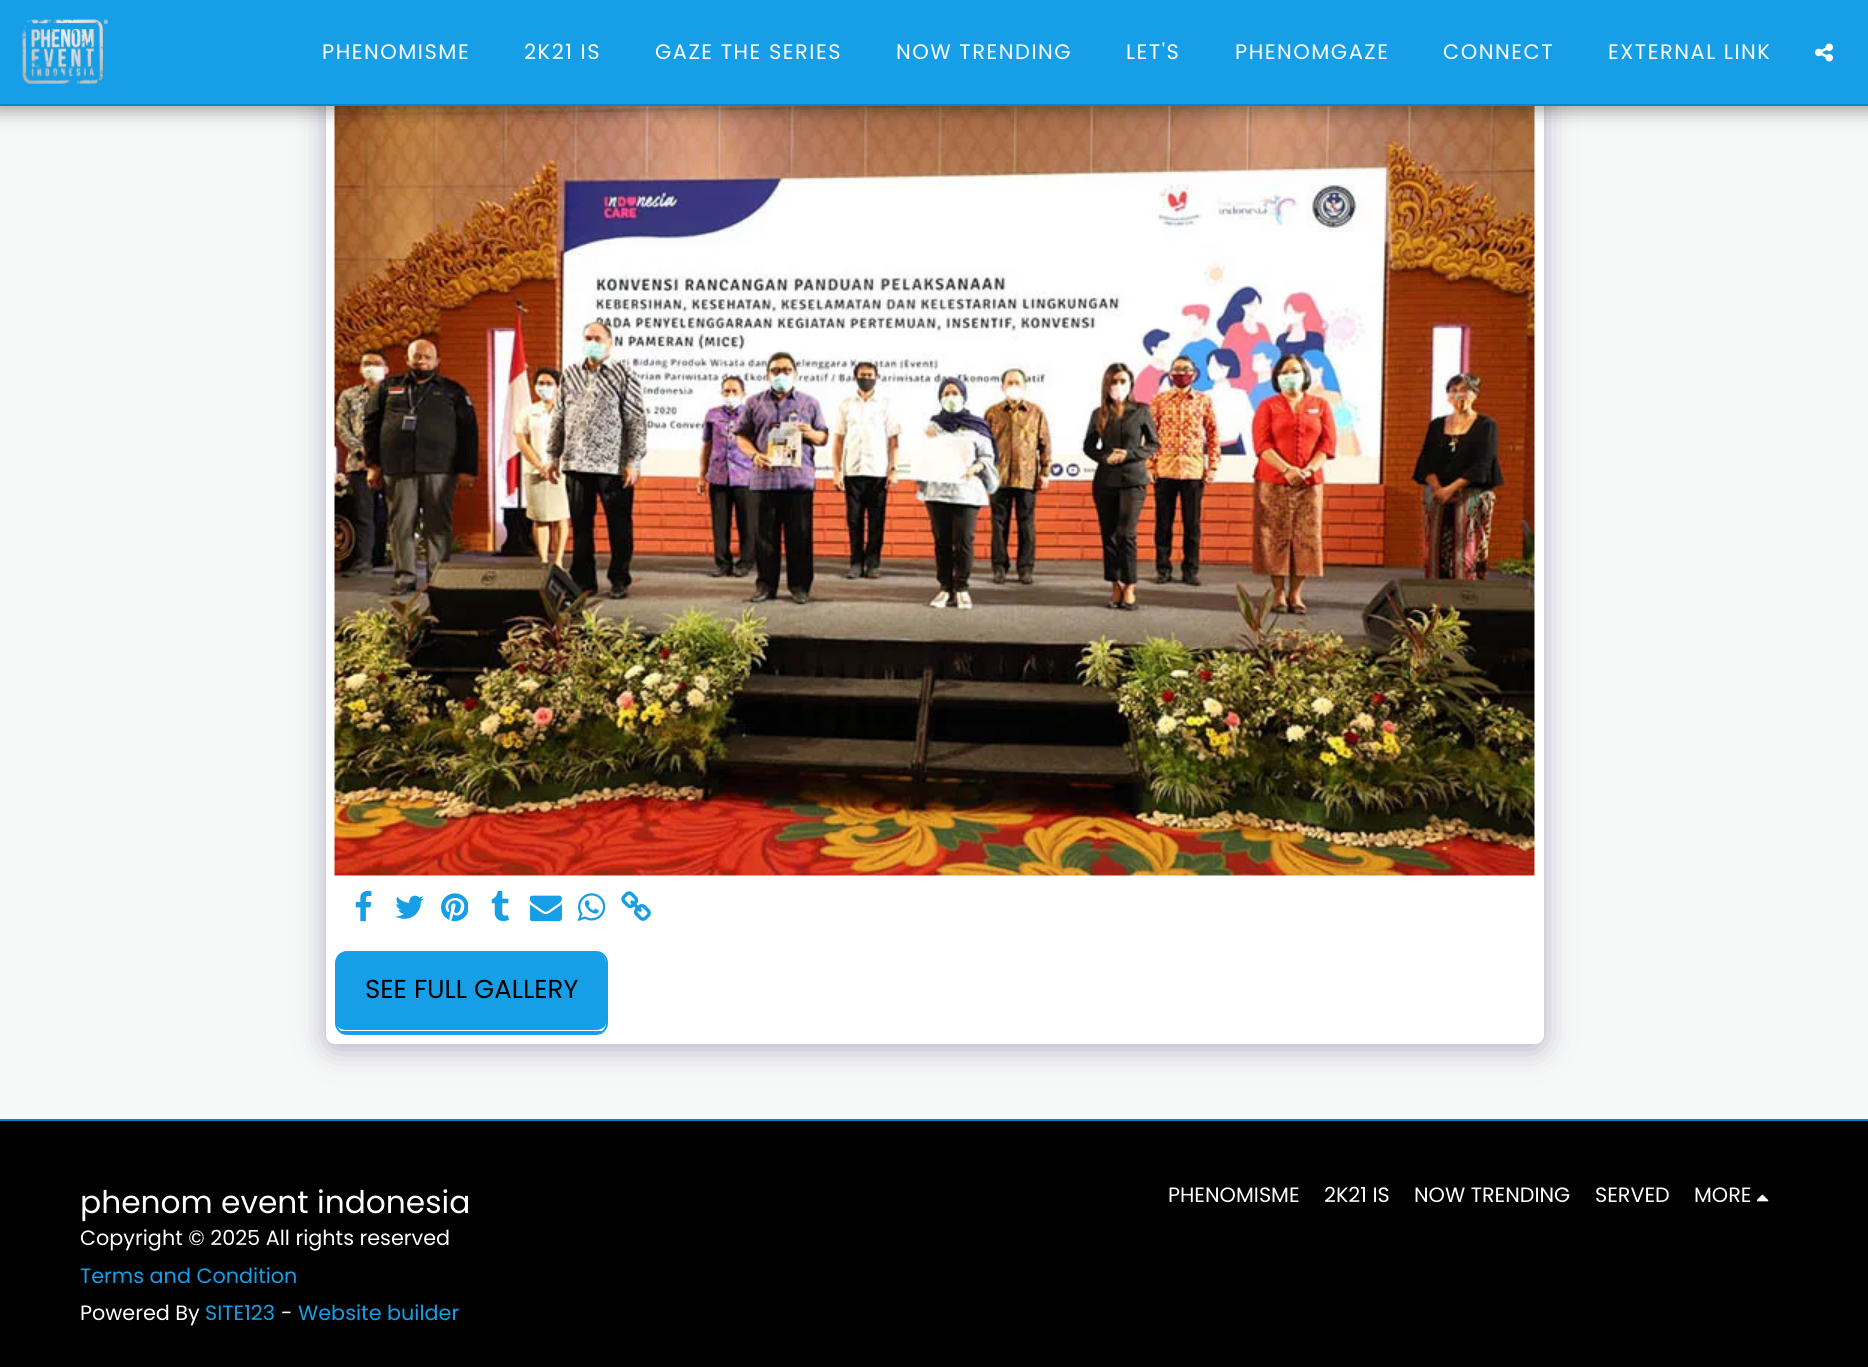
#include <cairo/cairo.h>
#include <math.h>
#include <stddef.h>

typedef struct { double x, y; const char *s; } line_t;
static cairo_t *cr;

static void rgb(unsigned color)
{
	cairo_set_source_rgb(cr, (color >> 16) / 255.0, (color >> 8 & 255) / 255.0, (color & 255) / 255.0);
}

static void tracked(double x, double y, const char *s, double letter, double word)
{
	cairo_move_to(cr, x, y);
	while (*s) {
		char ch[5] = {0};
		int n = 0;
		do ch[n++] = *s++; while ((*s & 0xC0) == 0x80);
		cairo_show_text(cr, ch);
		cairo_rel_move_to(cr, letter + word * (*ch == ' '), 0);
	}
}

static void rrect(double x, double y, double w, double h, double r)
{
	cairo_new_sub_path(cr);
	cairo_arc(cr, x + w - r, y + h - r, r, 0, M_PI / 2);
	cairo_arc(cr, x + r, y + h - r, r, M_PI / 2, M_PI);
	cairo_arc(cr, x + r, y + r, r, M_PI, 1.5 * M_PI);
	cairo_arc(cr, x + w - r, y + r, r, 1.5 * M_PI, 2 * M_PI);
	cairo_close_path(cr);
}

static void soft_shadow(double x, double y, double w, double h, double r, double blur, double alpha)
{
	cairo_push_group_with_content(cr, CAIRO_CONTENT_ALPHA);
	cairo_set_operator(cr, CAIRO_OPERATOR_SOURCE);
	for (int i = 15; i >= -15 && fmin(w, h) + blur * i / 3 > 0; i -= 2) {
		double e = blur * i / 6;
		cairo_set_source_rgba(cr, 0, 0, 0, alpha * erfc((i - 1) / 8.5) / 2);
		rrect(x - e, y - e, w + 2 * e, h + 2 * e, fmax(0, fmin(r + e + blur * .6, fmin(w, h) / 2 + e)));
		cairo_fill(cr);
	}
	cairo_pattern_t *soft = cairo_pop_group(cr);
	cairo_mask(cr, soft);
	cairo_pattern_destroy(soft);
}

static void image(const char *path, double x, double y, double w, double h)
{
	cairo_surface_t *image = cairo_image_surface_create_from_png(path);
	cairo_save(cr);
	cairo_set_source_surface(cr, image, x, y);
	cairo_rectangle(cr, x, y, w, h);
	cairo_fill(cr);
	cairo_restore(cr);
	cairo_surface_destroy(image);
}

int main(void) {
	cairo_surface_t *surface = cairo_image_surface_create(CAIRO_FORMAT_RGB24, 1868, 1367);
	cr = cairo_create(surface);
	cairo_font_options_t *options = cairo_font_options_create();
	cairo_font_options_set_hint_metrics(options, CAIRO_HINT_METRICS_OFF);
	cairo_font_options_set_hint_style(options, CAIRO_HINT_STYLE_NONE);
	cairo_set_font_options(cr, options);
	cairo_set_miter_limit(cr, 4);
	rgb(0x000000);
	cairo_paint(cr);
	rgb(0xf7f9f8);
	cairo_rectangle(cr, 0, 106, 1868, 1013);
	cairo_fill(cr);
	rgb(0x4d3f7a);
	soft_shadow(326, 72, 1218, 977, 9, 15, 0.4);
	rgb(0xffffff);
	rrect(326, 68, 1218, 976, 9);
	cairo_fill(cr);
	image("img/3.png", 334, 106, 1201, 770);
	rgb(0x000000);
	soft_shadow(-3, 0, 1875, 111, 0, 9, 0.35);
	rgb(0x169fe6);
	cairo_rectangle(cr, 0, 0, 1868, 104);
	cairo_fill(cr);
	rgb(0x0088cc);
	cairo_rectangle(cr, 0, 104, 1868, 2);
	cairo_fill(cr);
	image("img/1.png", 22, 19, 86, 65);
	image("img/2.png", 1815, 43, 18, 19);
	image("img/4.png", 355, 891, 17, 31);
	image("img/5.png", 395, 895, 29, 24);
	image("img/6.png", 441, 893, 27, 29);
	image("img/7.png", 491, 891, 18, 31);
	image("img/8.png", 530, 895, 32, 27);
	image("img/9.png", 578, 893, 27, 28);
	image("img/10.png", 621, 891, 30, 30);
	rgb(0x169fe6);
	cairo_new_path(cr);
	cairo_move_to(cr, 346, 952);
	cairo_line_to(cr, 596, 952);
	cairo_curve_to(cr, 601, 952, 606, 957, 606, 963);
	cairo_line_to(cr, 606, 1023);
	cairo_curve_to(cr, 606, 1027, 601, 1030, 596, 1030);
	cairo_line_to(cr, 346, 1030);
	cairo_curve_to(cr, 341, 1030, 336, 1027, 336, 1023);
	cairo_line_to(cr, 336, 963);
	cairo_curve_to(cr, 336, 957, 341, 952, 346, 952);
	cairo_close_path(cr);
	cairo_fill(cr);
	rrect(336, 952, 271, 82, 11);
	cairo_stroke(cr);
	cairo_rectangle(cr, 341, 1031, 261, 3);
	cairo_fill(cr);
	rgb(0x0088cc);
	cairo_rectangle(cr, 0, 1119, 1868, 2);
	cairo_fill(cr);
	image("img/11.png", 1757, 1194, 12, 8);
	cairo_select_font_face(cr, "Poppins", CAIRO_FONT_SLANT_NORMAL, CAIRO_FONT_WEIGHT_NORMAL);
	cairo_set_font_size(cr, 21);
	rgb(0xffffff);
	{
		static const line_t items[] = {
			{322, 59, "PHENOMISME"},
			{524, 59, "2K21 IS"},
			{655, 59, "GAZE THE SERIES"},
			{896, 59, "NOW TRENDING"},
			{1126, 59, "LET'S"},
			{1235, 59, "PHENOMGAZE"},
			{1443, 59, "CONNECT"},
			{1608, 59, "EXTERNAL LINK"},
		};
		for (size_t i = 0; i < sizeof items / sizeof *items; i++) {
			tracked(items[i].x, items[i].y, items[i].s, 1.5, 0);
		}
	}
	cairo_set_font_size(cr, 26);
	rgb(0x000000);
	cairo_move_to(cr, 365, 998);
	cairo_show_text(cr, "SEE FULL GALLERY");
	cairo_set_font_size(cr, 31.25);
	rgb(0xffffff);
	cairo_move_to(cr, 80, 1213);
	cairo_show_text(cr, "phenom event indonesia");
	cairo_set_font_size(cr, 20.75);
	cairo_move_to(cr, 80, 1245);
	cairo_show_text(cr, "Copyright © 2025 All rights reserved");
	rgb(0x169fe6);
	cairo_move_to(cr, 80, 1283);
	cairo_show_text(cr, "Terms and Condition");
	rgb(0xffffff);
	cairo_move_to(cr, 80, 1320);
	cairo_show_text(cr, "Powered By");
	rgb(0x169fe6);
	cairo_move_to(cr, 205, 1320);
	cairo_show_text(cr, "SITE123");
	rgb(0xffffff);
	cairo_move_to(cr, 281, 1320);
	cairo_show_text(cr, "-");
	rgb(0x169fe6);
	cairo_move_to(cr, 298, 1320);
	cairo_show_text(cr, "Website builder");
	rgb(0xffffff);
	{
		static const line_t items[] = {
			{1168, 1202, "PHENOMISME"},
			{1324, 1202, "2K21 IS"},
			{1414, 1202, "NOW TRENDING"},
			{1595, 1202, "SERVED"},
			{1694, 1202, "MORE"},
		};
		for (size_t i = 0; i < sizeof items / sizeof *items; i++) {
			cairo_move_to(cr, items[i].x, items[i].y);
			cairo_show_text(cr, items[i].s);
		}
	}
	cairo_surface_write_to_png(surface, "page.png");
	cairo_font_options_destroy(options);
	cairo_destroy(cr);
	cairo_surface_destroy(surface);
	return 0;
}
